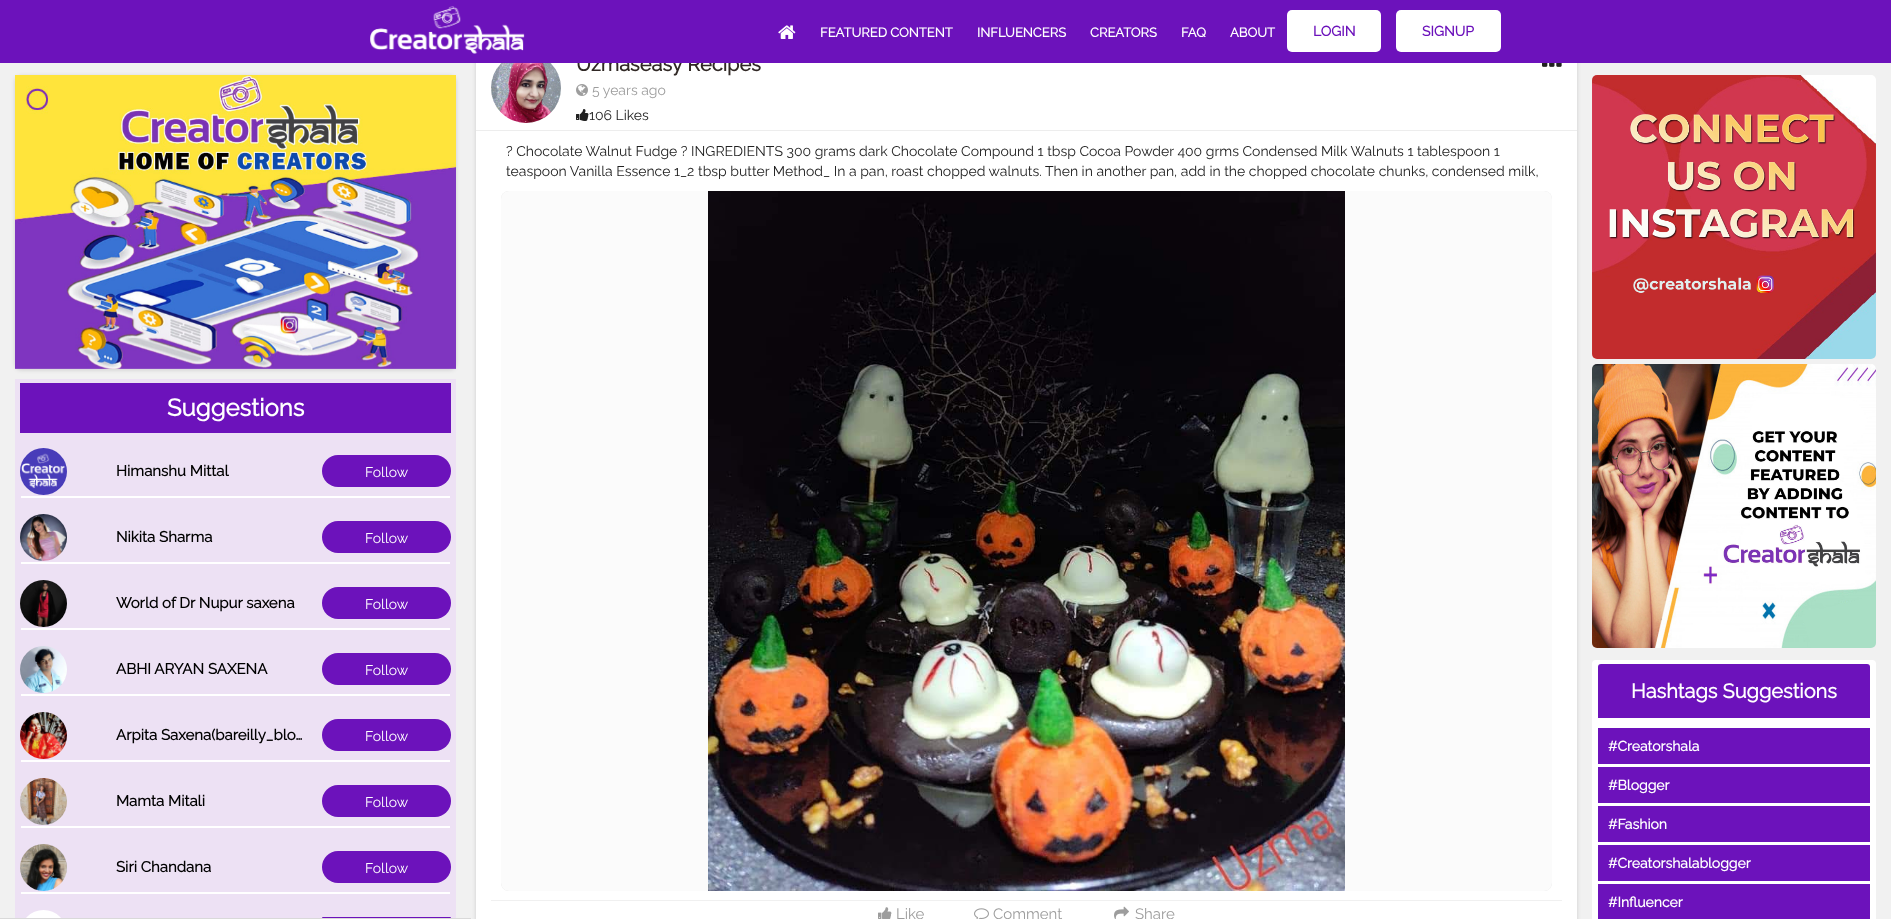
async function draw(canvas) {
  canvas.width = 1891;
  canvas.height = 919;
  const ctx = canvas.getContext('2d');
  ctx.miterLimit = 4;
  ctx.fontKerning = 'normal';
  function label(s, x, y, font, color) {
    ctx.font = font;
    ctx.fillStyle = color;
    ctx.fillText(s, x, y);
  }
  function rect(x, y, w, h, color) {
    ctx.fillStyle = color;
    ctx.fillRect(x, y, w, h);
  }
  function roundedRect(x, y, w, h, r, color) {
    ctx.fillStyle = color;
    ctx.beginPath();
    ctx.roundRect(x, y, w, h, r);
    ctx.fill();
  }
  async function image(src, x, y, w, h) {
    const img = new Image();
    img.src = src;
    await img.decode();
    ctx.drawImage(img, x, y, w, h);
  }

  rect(0, 0, 1891, 919, '#f1f1f1');
  ctx.fillStyle = '#00000024';
  ctx.filter = 'blur(2px)';
  ctx.beginPath();
  ctx.roundRect(476, 49, 1101, 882, 6);
  ctx.fill();
  ctx.filter = 'none';
  rect(476, 63, 1101, 856, '#fff');
  label('Uzmaseasy Recipes', 576, 71, 'bold 20px Raleway', '#302825');
  rect(0, 0, 1891, 63, '#6c12bb');
  await image('assets/img1.png', 370, 6, 155, 48);
  await image('assets/img2.png', 778, 25, 18, 14);
  label('FEATURED CONTENT', 820, 37, 'bold 13px Raleway', '#fff');
  label('INFLUENCERS', 977, 37, 'bold 13px Raleway', '#fff');
  label('CREATORS', 1090, 37, 'bold 13px Raleway', '#fff');
  label('FAQ', 1181, 37, 'bold 13px Raleway', '#fff');
  label('ABOUT', 1230, 37, 'bold 13px Raleway', '#fff');
  roundedRect(1287, 10, 94, 42, 5, '#fff');
  label('LOGIN', 1313, 36, 'bold 14px Raleway', '#6c12bb');
  roundedRect(1396, 10, 105, 42, 5, '#fff');
  label('SIGNUP', 1422, 36, 'bold 14px Raleway', '#6c12bb');
  rect(0, 918, 471, 1, '#d9d9d9');
  ctx.fillStyle = '#00000024';
  ctx.filter = 'blur(2px)';
  ctx.beginPath();
  ctx.roundRect(15, 76, 441, 294, 6);
  ctx.fill();
  ctx.filter = 'none';
  await image('assets/img3.png', 15, 75, 441, 294);
  rect(15, 379, 441, 539, '#ede1f4');
  rect(20, 383, 431, 50, '#6c12bb');
  label('Suggestions', 167, 416, 'bold 24px Raleway', '#fff');
  await image('assets/img4.png', 20, 448, 47, 47);
  label('Himanshu Mittal', 116, 476, 'bold 15px Raleway', '#000');
  roundedRect(322, 455, 129, 32, 16, '#6c12bb');
  label('Follow', 365, 477, '100 14px Raleway', '#fff');
  rect(21, 496, 429, 2, '#fff');
  await image('assets/img5.png', 20, 514, 47, 47);
  label('Nikita Sharma', 116, 542, 'bold 15px Raleway', '#000');
  roundedRect(322, 521, 129, 32, 16, '#6c12bb');
  label('Follow', 365, 543, '100 14px Raleway', '#fff');
  rect(21, 562, 429, 2, '#fff');
  await image('assets/img6.png', 20, 580, 47, 47);
  label('World of Dr Nupur saxena', 116, 608, 'bold 15px Raleway', '#000');
  roundedRect(322, 587, 129, 32, 16, '#6c12bb');
  label('Follow', 365, 609, '100 14px Raleway', '#fff');
  rect(21, 628, 429, 2, '#fff');
  await image('assets/img7.png', 20, 646, 47, 47);
  label('ABHI ARYAN SAXENA', 116, 674, 'bold 15px Raleway', '#000');
  roundedRect(322, 653, 129, 32, 16, '#6c12bb');
  label('Follow', 365, 675, '100 14px Raleway', '#fff');
  rect(21, 694, 429, 2, '#fff');
  await image('assets/img8.png', 20, 712, 47, 47);
  label('Arpita Saxena(bareilly_blo…', 116, 740, 'bold 15px Raleway', '#000');
  roundedRect(322, 719, 129, 32, 16, '#6c12bb');
  label('Follow', 365, 741, '100 14px Raleway', '#fff');
  rect(21, 760, 429, 2, '#fff');
  await image('assets/img9.png', 20, 778, 47, 47);
  label('Mamta Mitali', 116, 806, 'bold 15px Raleway', '#000');
  roundedRect(322, 785, 129, 32, 16, '#6c12bb');
  label('Follow', 365, 807, '100 14px Raleway', '#fff');
  rect(21, 826, 429, 2, '#fff');
  await image('assets/img10.png', 20, 844, 47, 47);
  label('Siri Chandana', 116, 872, 'bold 15px Raleway', '#000');
  roundedRect(322, 851, 129, 32, 16, '#6c12bb');
  label('Follow', 365, 873, '100 14px Raleway', '#fff');
  rect(21, 892, 429, 2, '#fff');
  await image('assets/img11.png', 26, 910, 35, 8);
  ctx.fillStyle = '#6c12bb';
  ctx.beginPath();
  ctx.roundRect(322, 917, 129, 1, [16, 16, 0, 0]);
  ctx.fill();
  rect(476, 130, 1101, 1, '#ededed');
  await image('assets/img12.png', 491, 63, 70, 60);
  await image('assets/img13.png', 576, 84, 12, 12);
  label('5 years ago', 592, 95, '100 14px Raleway', '#9d9d9d');
  await image('assets/img14.png', 576, 109, 13, 12);
  label('106 Likes', 589, 120, '100 14px Raleway', '#212121');
  await image('assets/img15.png', 1542, 63, 20, 4);
  label('? Chocolate Walnut Fudge ? INGREDIENTS 300 grams dark Chocolate Compound 1 tbsp Cocoa Powder 400 grms Condensed Milk Walnuts 1 tablespoon 1', 506, 156, '100 14px Raleway', '#212121');
  label('teaspoon Vanilla Essence 1_2 tbsp butter Method_ In a pan, roast chopped walnuts. Then in another pan, add in the chopped chocolate chunks, condensed milk,', 506, 176, '100 14px Raleway', '#212121');
  ctx.save();
  ctx.beginPath();
  ctx.roundRect(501, 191, 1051, 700, 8);
  ctx.clip();
  ctx.fillStyle = '#9d9d9d';
  ctx.filter = 'blur(3.5px)';
  ctx.beginPath();
  ctx.roundRect(502, 192, 1049, 698, 7);
  ctx.fill();
  ctx.filter = 'none';
  ctx.restore();
  roundedRect(501, 191, 1051, 700, 8, '#fbfbfb');
  await image('assets/img16.png', 708, 191, 637, 700);
  rect(491, 900, 1071, 1, '#f0f0f0');
  await image('assets/img17.png', 878, 907, 14, 12);
  label('Like', 896, 919, '100 15px Raleway', '#9d9d9d');
  await image('assets/img18.png', 974, 908, 15, 11);
  label('Comment', 993, 919, '100 15px Raleway', '#9d9d9d');
  await image('assets/img19.png', 1114, 906, 15, 13);
  label('Share', 1135, 919, '100 15px Raleway', '#9d9d9d');
  await image('assets/img20.png', 1592, 75, 284, 284);
  await image('assets/img21.png', 1592, 364, 284, 284);
  ctx.fillStyle = '#fff';
  ctx.beginPath();
  ctx.roundRect(1592, 660, 284, 259, [4, 4, 0, 0]);
  ctx.fill();
  ctx.fillStyle = '#6c12bb';
  ctx.beginPath();
  ctx.roundRect(1598, 664, 272, 54, [3, 3, 0, 0]);
  ctx.fill();
  label('Hashtags Suggestions', 1631, 698, 'bold 20px Raleway', '#fff');
  rect(1598, 728, 272, 36, '#6c12bb');
  label('#Creatorshala', 1608, 751, 'bold 14px Raleway', '#fff');
  rect(1598, 767, 272, 36, '#6c12bb');
  label('#Blogger', 1608, 790, 'bold 14px Raleway', '#fff');
  rect(1598, 806, 272, 36, '#6c12bb');
  label('#Fashion', 1608, 829, 'bold 14px Raleway', '#fff');
  rect(1598, 845, 272, 36, '#6c12bb');
  label('#Creatorshalablogger', 1608, 868, 'bold 14px Raleway', '#fff');
  rect(1598, 884, 272, 35, '#6c12bb');
  label('#Influencer', 1608, 907, 'bold 14px Raleway', '#fff');
}

draw(document.querySelector('canvas'));
